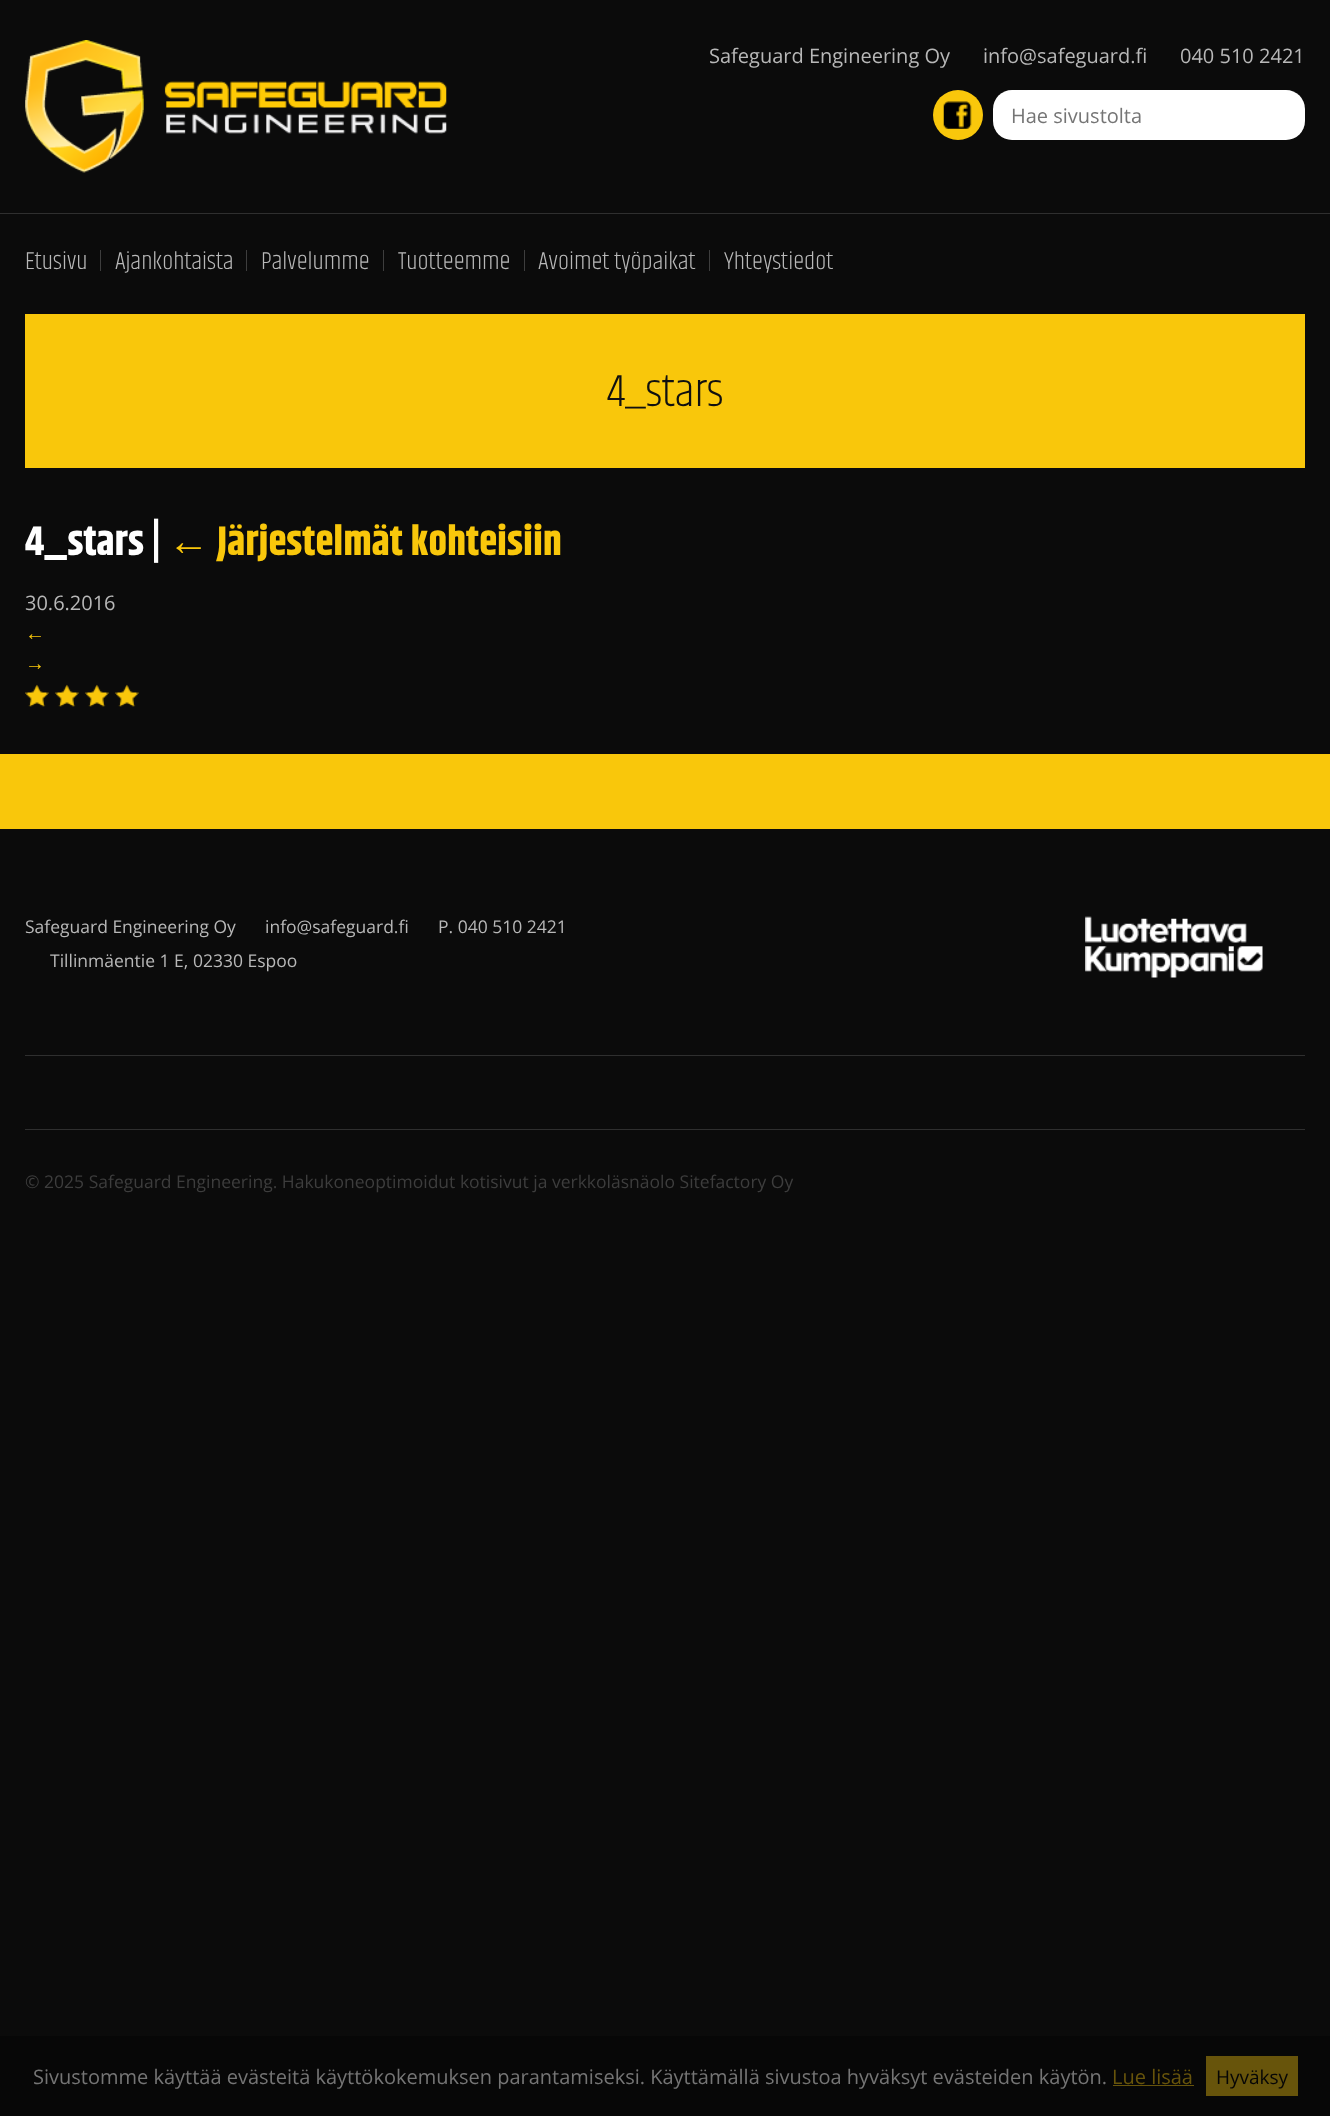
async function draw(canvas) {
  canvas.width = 1330;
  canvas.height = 2116;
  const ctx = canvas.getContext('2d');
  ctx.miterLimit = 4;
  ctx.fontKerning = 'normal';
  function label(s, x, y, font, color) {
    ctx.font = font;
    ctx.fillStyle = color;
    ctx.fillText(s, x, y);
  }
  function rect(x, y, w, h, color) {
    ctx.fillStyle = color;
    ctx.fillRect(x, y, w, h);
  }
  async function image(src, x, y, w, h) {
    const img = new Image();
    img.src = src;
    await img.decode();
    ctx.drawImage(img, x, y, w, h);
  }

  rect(0, 0, 1330, 2116, '#0b0b0b');
  await image('assets/img1.png', 25, 40, 422, 133);
  label('Safeguard Engineering Oy', 709, 63, '20px Open Sans', '#b8b8b8');
  label('info@safeguard.fi', 983, 63, '20px Open Sans', '#b8b8b8');
  label('040 510 2421', 1180, 63, '20px Open Sans', '#b8b8b8');
  ctx.fillStyle = '#f9c70b';
  ctx.beginPath();
  ctx.arc(958, 115, 25, 0, 2 * Math.PI);
  ctx.fill();
  await image('assets/img2.png', 943, 101, 29, 28);
  ctx.fillStyle = '#fff';
  ctx.beginPath();
  ctx.roundRect(993, 90, 262, 50, [19, 0, 0, 19]);
  ctx.fill();
  label('Hae sivustolta', 1011, 123, '20px Open Sans', '#757575');
  ctx.fillStyle = '#fff';
  ctx.beginPath();
  ctx.roundRect(1255, 90, 50, 50, [0, 19, 19, 0]);
  ctx.fill();
  rect(0, 213, 1330, 1, '#2f2f2f');
  label('Etusivu', 25, 269, '300 25px Khand', '#b8b8b8');
  rect(100, 250, 1, 21, '#3e3e3e');
  label('Ajankohtaista', 115, 269, '300 25px Khand', '#b8b8b8');
  rect(246, 250, 1, 21, '#3e3e3e');
  label('Palvelumme', 261, 269, '300 25px Khand', '#b8b8b8');
  rect(383, 250, 1, 21, '#3e3e3e');
  label('Tuotteemme', 398, 269, '300 25px Khand', '#b8b8b8');
  rect(524, 250, 1, 21, '#3e3e3e');
  label('Avoimet työpaikat', 538, 269, '300 25px Khand', '#b8b8b8');
  rect(709, 250, 1, 21, '#3e3e3e');
  label('Yhteystiedot', 724, 269, '300 25px Khand', '#b8b8b8');
  rect(25, 314, 1280, 154, '#f9c70b');
  label('4_stars', 607, 406, '300 46px Khand', '#101010');
  label('4_stars |', 25, 555, 'bold 41.25px Khand', '#fff');
  label('←', 168, 555, 'bold 41.25px Liberation Sans', '#f9c70b');
  label('Järjestelmät kohteisiin', 217, 555, 'bold 41.25px Khand', '#f9c70b');
  label('30.6.2016', 25, 610, '20px Open Sans', '#b8b8b8');
  label('←', 25, 640, '20px Liberation Sans', '#f9c70b');
  label('→', 25, 670, '20px Liberation Sans', '#f9c70b');
  await image('assets/img3.png', 25, 684, 114, 23);
  rect(0, 754, 1330, 75, '#f9c70b');
  label('Safeguard Engineering Oy', 25, 933, '17.5px Open Sans', '#b8b8b8');
  label('info@safeguard.fi', 265, 933, '17.5px Open Sans', '#b8b8b8');
  label('P. 040 510 2421', 438, 933, '17.5px Open Sans', '#b8b8b8');
  label('Tillinmäentie 1 E, 02330 Espoo', 50, 967, '17.5px Open Sans', '#b8b8b8');
  await image('assets/img4.png', 1085, 916, 178, 62);
  rect(25, 1055, 1280, 1, '#2f2f2f');
  rect(25, 1129, 1280, 1, '#2f2f2f');
  label('© 2025 Safeguard Engineering. Hakukoneoptimoidut kotisivut ja verkkoläsnäolo Sitefactory Oy', 25, 1188, '17.5px Open Sans', '#3d3d3d');
  rect(0, 2036, 1330, 80, '#070707');
  label('Sivustomme käyttää evästeitä käyttökokemuksen parantamiseksi. Käyttämällä sivustoa hyväksyt evästeiden käytön.', 33, 2084, '20px Open Sans', '#757575');
  label('Lue lisää', 1112, 2084, '20px Open Sans', '#67540b');
  rect(1113, 2085, 81, 1, '#67540b');
  rect(1206, 2056, 92, 40, '#67540b');
  label('Hyväksy', 1216, 2084, '19px Open Sans', '#060606');
}

draw(document.querySelector('canvas'));
